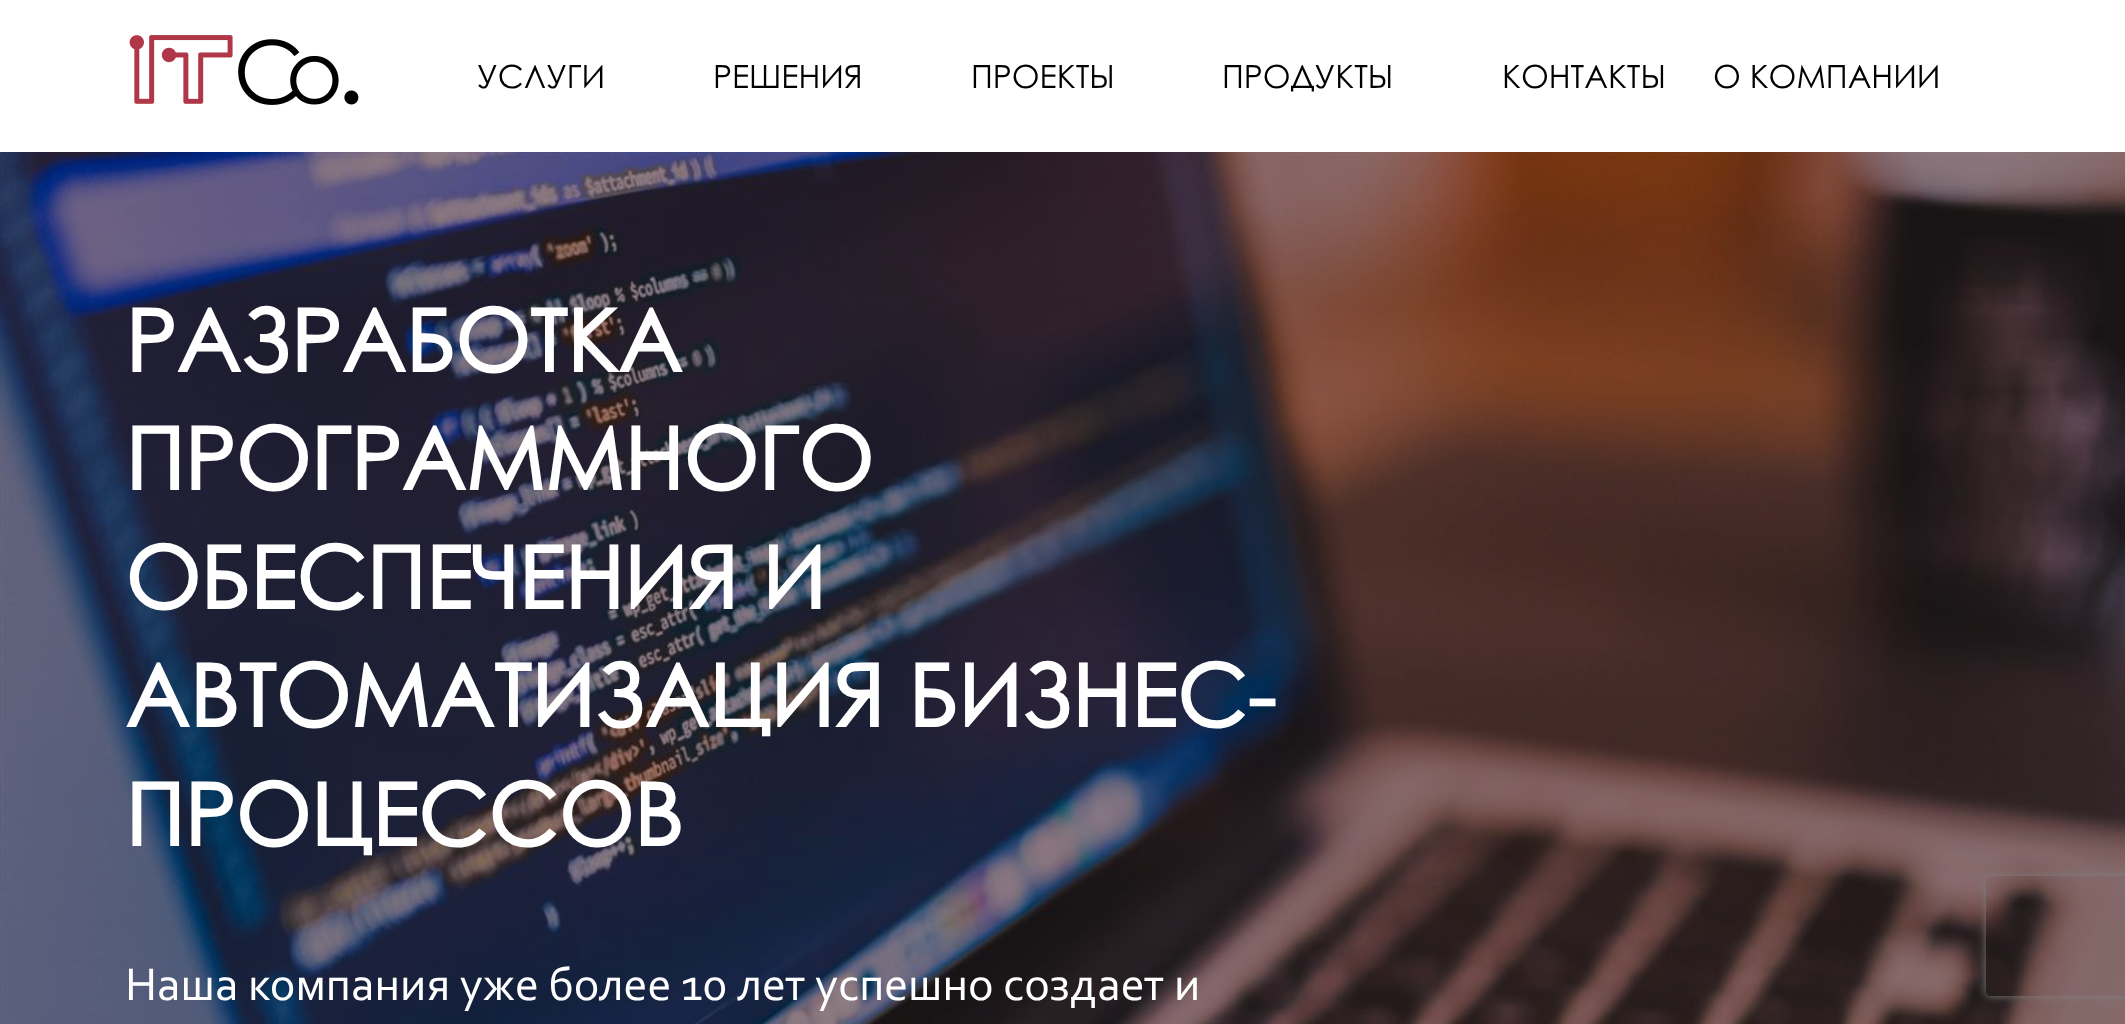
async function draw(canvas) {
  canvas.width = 2125;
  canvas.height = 1024;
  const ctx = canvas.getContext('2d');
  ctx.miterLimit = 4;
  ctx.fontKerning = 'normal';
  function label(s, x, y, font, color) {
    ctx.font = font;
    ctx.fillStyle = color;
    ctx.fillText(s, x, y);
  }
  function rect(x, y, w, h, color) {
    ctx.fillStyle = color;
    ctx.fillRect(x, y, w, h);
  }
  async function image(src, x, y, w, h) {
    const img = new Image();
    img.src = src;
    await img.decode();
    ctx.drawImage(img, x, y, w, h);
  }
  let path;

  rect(0, 0, 2125, 1024, '#fff');
  await image('assets/img1.png', 129, 35, 230, 70);
  label('УСЛУГИ', 477, 88, '32px Century Gothic', '#000');
  label('РЕШЕНИЯ', 713, 88, '32px Century Gothic', '#000');
  label('ПРОЕКТЫ', 971, 88, '32px Century Gothic', '#000');
  label('ПРОДУКТЫ', 1222, 88, '32px Century Gothic', '#000');
  label('КОНТАКТЫ', 1502, 88, '32px Century Gothic', '#000');
  label('О КОМПАНИИ', 1713, 88, '32px Century Gothic', '#000');
  await image('assets/img2.png', 0, 152, 2125, 872);
  label('РАЗРАБОТКА', 125, 372, 'bold 86.4px Century Gothic', '#fff');
  label('ПРОГРАММНОГО', 125, 490, 'bold 86.4px Century Gothic', '#fff');
  label('ОБЕСПЕЧЕНИЯ И', 125, 609, 'bold 86.4px Century Gothic', '#fff');
  label('АВТОМАТИЗАЦИЯ БИЗНЕС-', 125, 727, 'bold 86.4px Century Gothic', '#fff');
  label('ПРОЦЕССОВ', 125, 846, 'bold 86.4px Century Gothic', '#fff');
  label('Наша компания уже более 10 лет успешно создает и', 125, 1000, '48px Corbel', '#fff');
  ctx.save();
  path = new Path2D('M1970 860H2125V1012H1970ZM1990 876H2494C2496 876 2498 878 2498 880V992C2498 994 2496 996 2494 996H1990C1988 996 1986 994 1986 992V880C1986 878 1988 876 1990 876Z');
  ctx.clip(path, 'evenodd');
  ctx.fillStyle = '#808080';
  ctx.filter = 'blur(5px)';
  ctx.beginPath();
  ctx.roundRect(1986, 876, 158, 120, 4);
  ctx.fill();
  ctx.filter = 'none';
  ctx.restore();
}

draw(document.querySelector('canvas'));
